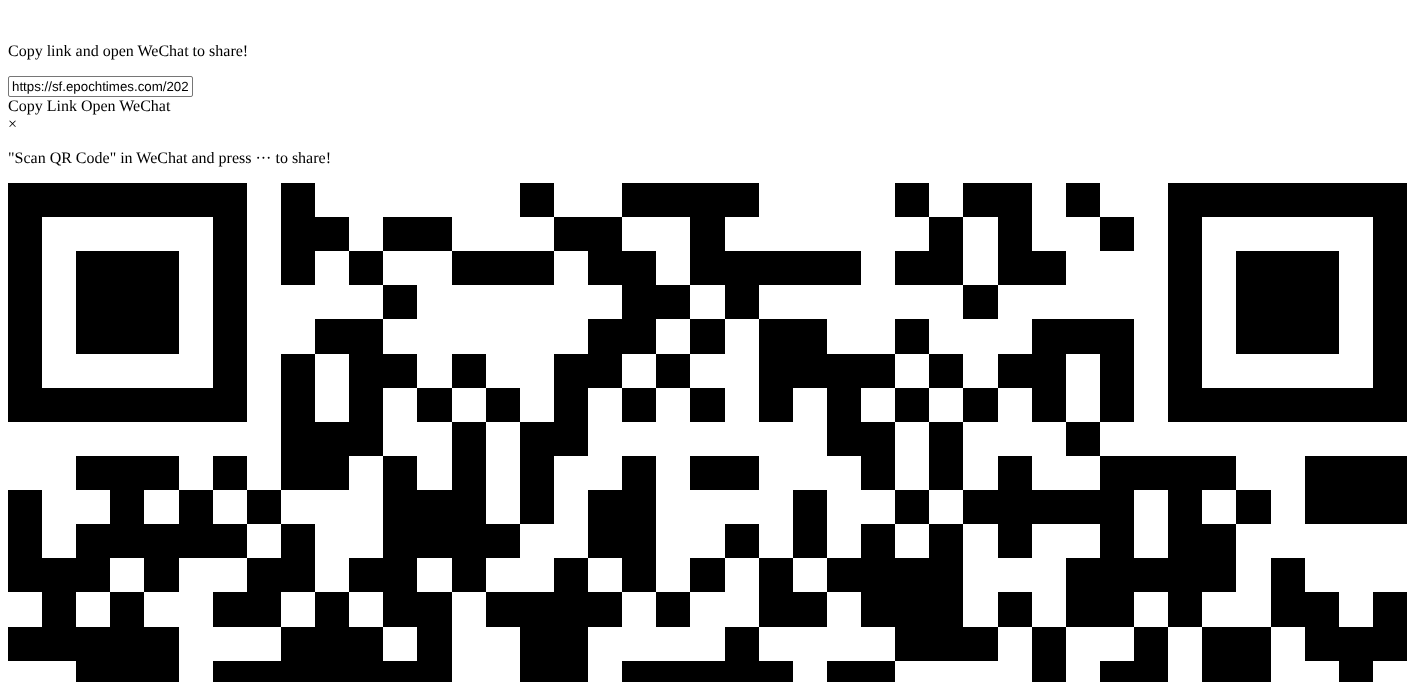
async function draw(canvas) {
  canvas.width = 1415;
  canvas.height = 682;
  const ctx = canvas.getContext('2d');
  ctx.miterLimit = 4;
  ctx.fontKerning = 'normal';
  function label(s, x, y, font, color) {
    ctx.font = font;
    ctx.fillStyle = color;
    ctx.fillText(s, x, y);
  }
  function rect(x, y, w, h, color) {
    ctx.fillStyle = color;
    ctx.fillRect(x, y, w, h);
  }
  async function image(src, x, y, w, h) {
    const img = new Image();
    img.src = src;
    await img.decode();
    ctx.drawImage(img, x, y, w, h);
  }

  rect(0, 0, 1415, 682, '#fff');
  label('Copy link and open WeChat to share!', 8, 56, '16px Liberation Serif', '#000');
  ctx.beginPath();
  ctx.roundRect(8.5, 76.5, 184, 20, 1.5);
  ctx.strokeStyle = '#767676';
  ctx.stroke();
  label('https://sf.epochtimes.com/202', 12, 91, '13.3px Liberation Sans', '#000');
  label('Copy Link Open WeChat', 8, 111, '16px Liberation Serif', '#000');
  label('×', 8, 129, '16px Liberation Serif', '#000');
  label('"Scan QR Code" in WeChat and press ··· to share!', 8, 163, '16px Liberation Serif', '#000');
  await image('assets/img1.png', 8, 183, 1399, 499);
}

draw(document.querySelector('canvas'));
